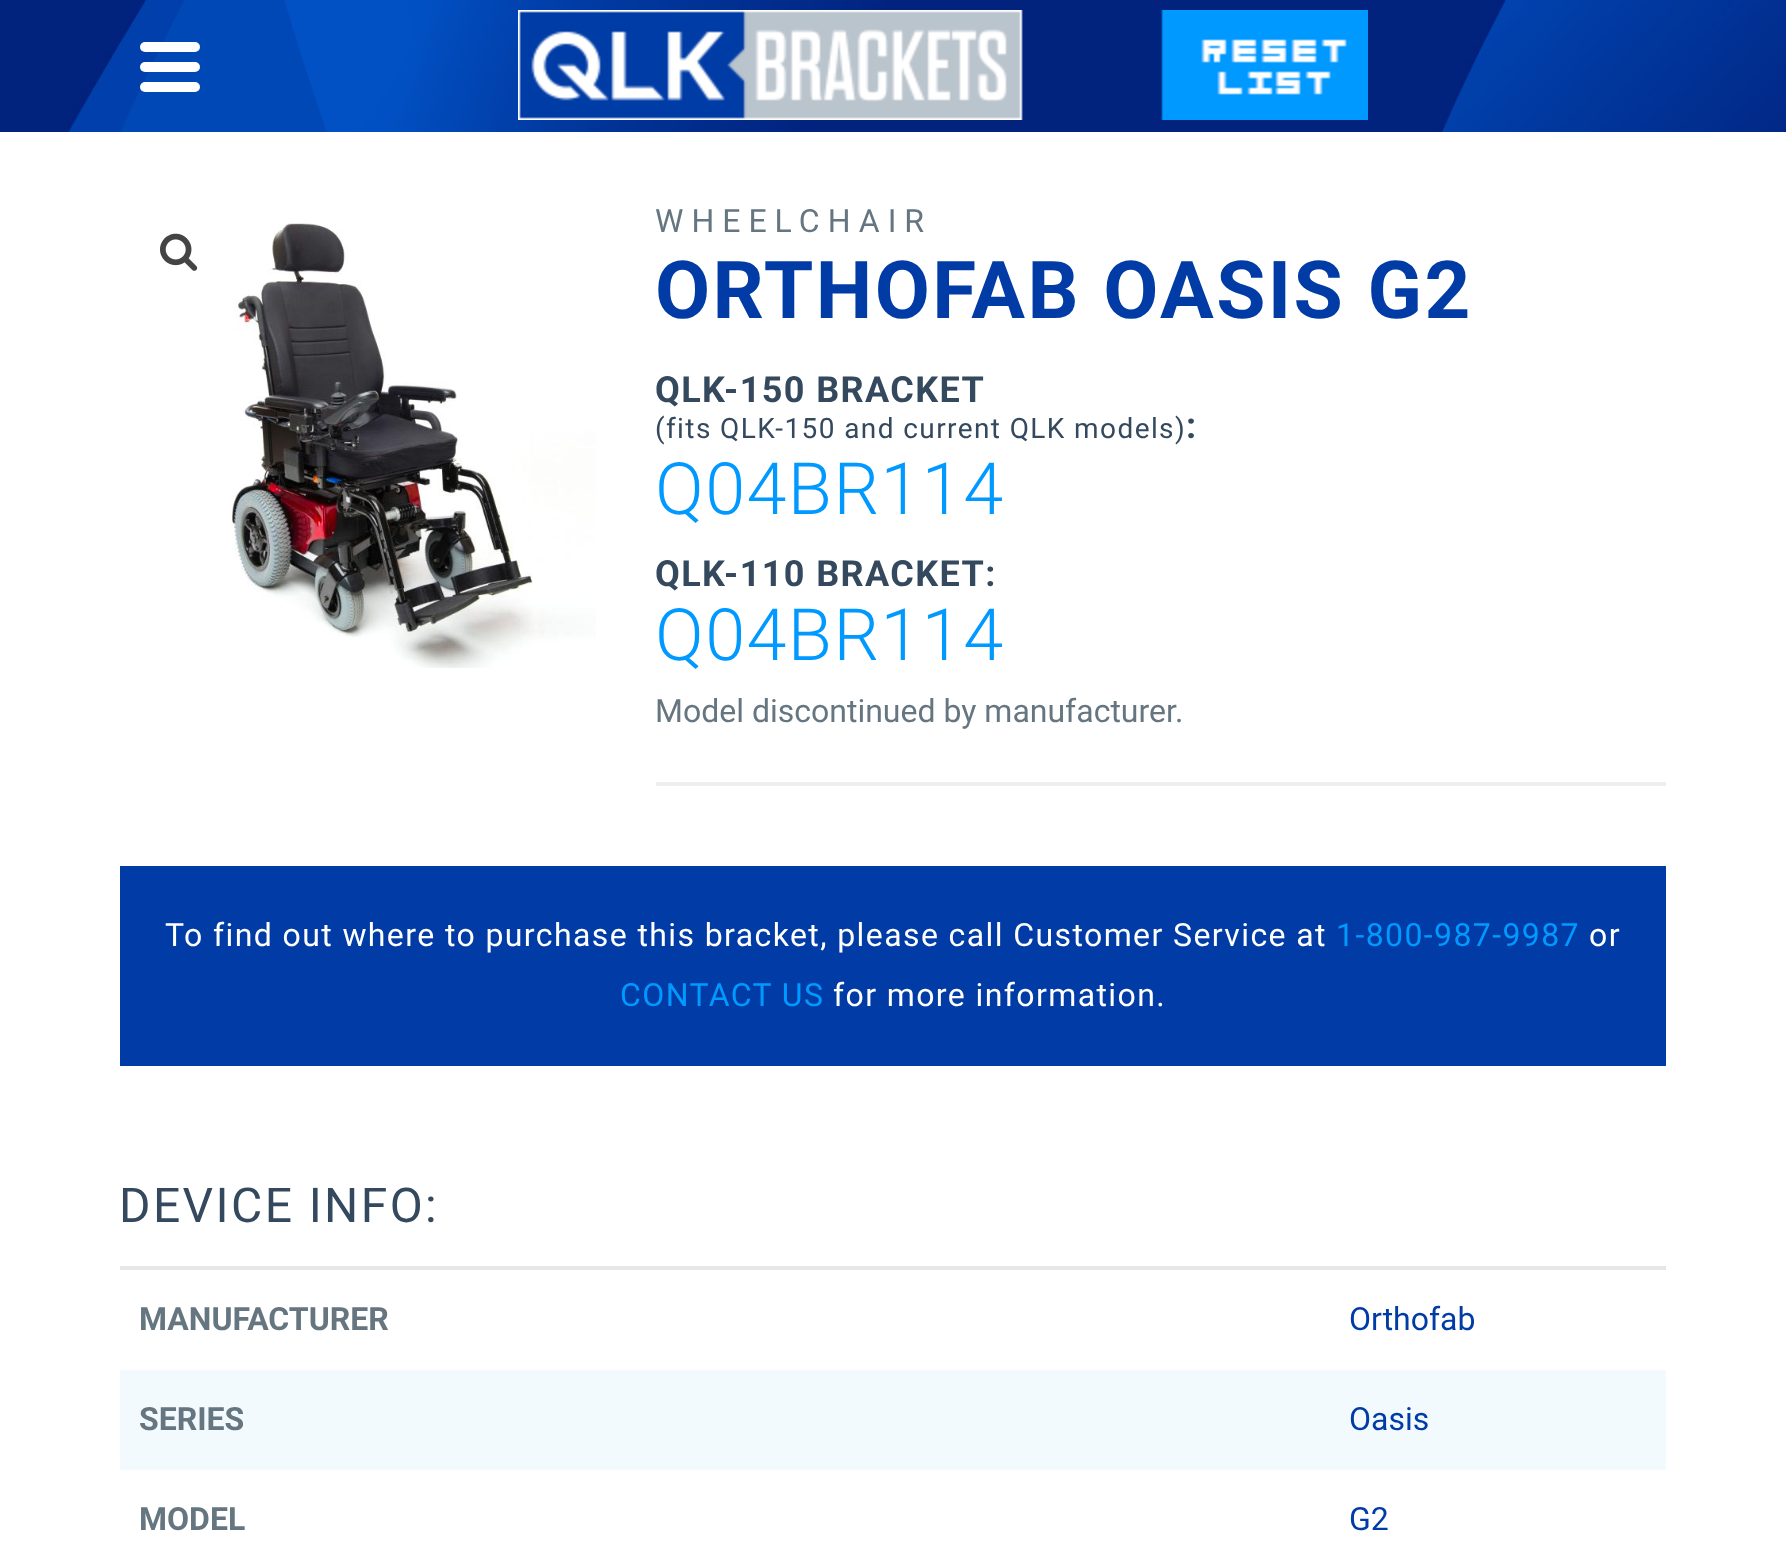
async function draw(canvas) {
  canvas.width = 1786;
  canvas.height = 1544;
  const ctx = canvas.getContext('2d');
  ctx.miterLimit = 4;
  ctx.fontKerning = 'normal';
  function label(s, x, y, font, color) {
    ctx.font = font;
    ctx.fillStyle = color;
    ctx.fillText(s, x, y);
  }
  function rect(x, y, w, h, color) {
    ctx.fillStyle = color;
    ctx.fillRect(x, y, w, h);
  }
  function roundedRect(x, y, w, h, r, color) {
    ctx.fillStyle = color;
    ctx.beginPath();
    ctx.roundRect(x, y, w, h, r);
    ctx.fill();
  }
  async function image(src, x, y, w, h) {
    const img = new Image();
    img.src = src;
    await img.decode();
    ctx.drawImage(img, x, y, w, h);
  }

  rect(0, 0, 1786, 1544, '#fff');
  await image('assets/img1.png', 0, 0, 1786, 132);
  roundedRect(140, 42, 60, 10, 5, '#fff');
  roundedRect(140, 62, 60, 10, 5, '#fff');
  roundedRect(140, 82, 60, 10, 5, '#fff');
  await image('assets/img2.png', 518, 10, 850, 110);
  await image('assets/img3.png', 160, 233, 38, 38);
  await image('assets/img4.png', 230, 223, 366, 445);
  ctx.letterSpacing = '8px';
  label('WHEELCHAIR', 655, 232, '32px Roboto', '#657680');
  ctx.letterSpacing = '2.4px';
  label('ORTHOFAB OASIS G2', 655, 318, 'bold 80px Roboto', '#013ca6');
  ctx.letterSpacing = '1.4px';
  label('QLK-150 BRACKET', 655, 402, 'bold 36px Roboto', '#34495e');
  label('(fits QLK-150 and current QLK models)', 655, 438, '28px Roboto', '#34495e');
  label(':', 1186, 438, 'bold 36px Roboto', '#34495e');
  label('Q04BR114', 655, 514, '300 72px Roboto', '#09f');
  label('QLK-110 BRACKET:', 655, 586, 'bold 36px Roboto', '#34495e');
  label('Q04BR114', 655, 660, '300 72px Roboto', '#09f');
  ctx.letterSpacing = '0px';
  label('Model discontinued by manufacturer.', 655, 722, '32px Roboto', '#657680');
  rect(656, 782, 1010, 4, '#eee');
  rect(120, 866, 1546, 200, '#013ca6');
  ctx.letterSpacing = '1.4px';
  label('To find out where to purchase this bracket, please call Customer Service at', 165, 946, '32px Roboto', '#fff');
  label('1-800-987-9987', 1336, 946, '32px Roboto', '#09f');
  label('or', 1589, 946, '32px Roboto', '#fff');
  label('CONTACT US', 620, 1006, '32px Roboto', '#09f');
  label('for more information.', 833, 1006, '32px Roboto', '#fff');
  ctx.letterSpacing = '2.4px';
  label('DEVICE INFO:', 119, 1222, '48px Roboto', '#34495e');
  rect(120, 1266, 1546, 4, '#e6e6e6');
  ctx.letterSpacing = '0px';
  label('MANUFACTURER', 139, 1330, 'bold 32px Roboto', '#657680');
  label('Orthofab', 1349, 1330, '32px Roboto', '#013ca6');
  rect(120, 1370, 1546, 100, '#f2fafe');
  label('SERIES', 139, 1430, 'bold 32px Roboto', '#657680');
  label('Oasis', 1349, 1430, '32px Roboto', '#013ca6');
  label('MODEL', 139, 1530, 'bold 32px Roboto', '#657680');
  label('G2', 1349, 1530, '32px Roboto', '#013ca6');
}

draw(document.querySelector('canvas'));
